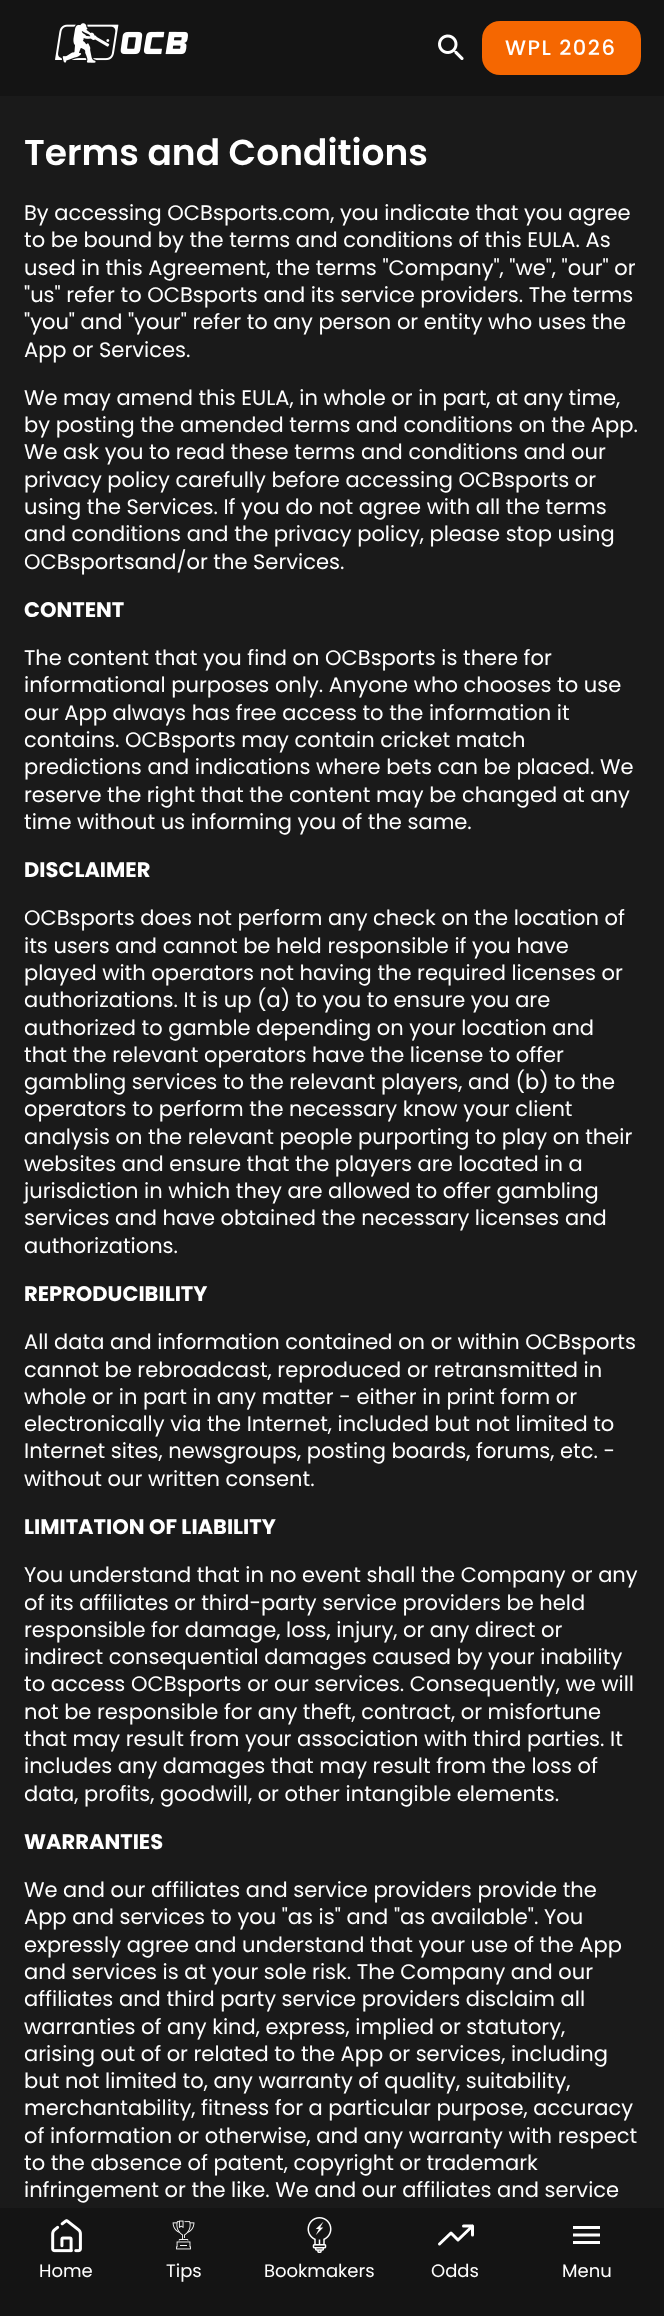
async function draw(canvas) {
  canvas.width = 664;
  canvas.height = 2316;
  const ctx = canvas.getContext('2d');
  ctx.miterLimit = 4;
  ctx.fontKerning = 'normal';
  function label(s, x, y, font, color) {
    ctx.font = font;
    ctx.fillStyle = color;
    ctx.fillText(s, x, y);
  }
  function rect(x, y, w, h, color) {
    ctx.fillStyle = color;
    ctx.fillRect(x, y, w, h);
  }
  function roundedRect(x, y, w, h, r, color) {
    ctx.fillStyle = color;
    ctx.beginPath();
    ctx.roundRect(x, y, w, h, r);
    ctx.fill();
  }
  async function image(src, x, y, w, h) {
    const img = new Image();
    img.src = src;
    await img.decode();
    ctx.drawImage(img, x, y, w, h);
  }
  let path;

  rect(0, 0, 664, 2316, '#1a1a1a');
  rect(0, 0, 664, 96, '#141414');
  await image('assets/img1.png', 55, 23, 133, 40);
  await image('assets/img2.png', 438, 34, 26, 26);
  roundedRect(482, 21, 159, 54, 18, '#f56701');
  ctx.letterSpacing = '1.5px';
  label('WPL 2026', 505, 55, '500 21px Poppins', '#fff');
  ctx.letterSpacing = '0px';
  label('Terms and Conditions', 24, 165, '600 36px Poppins', '#fff');
  label('By accessing OCBsports.com, you indicate that you agree', 24, 220, '21px Poppins', '#fff');
  label('to be bound by the terms and conditions of this EULA. As', 24, 247, '21px Poppins', '#fff');
  label('used in this Agreement, the terms "Company", "we", "our" or', 24, 275, '21px Poppins', '#fff');
  label('"us" refer to OCBsports and its service providers. The terms', 24, 302, '21px Poppins', '#fff');
  label('"you" and "your" refer to any person or entity who uses the', 24, 329, '21px Poppins', '#fff');
  label('App or Services.', 24, 357, '21px Poppins', '#fff');
  label('We may amend this EULA, in whole or in part, at any time,', 24, 405, '21px Poppins', '#fff');
  label('by posting the amended terms and conditions on the App.', 24, 432, '21px Poppins', '#fff');
  label('We ask you to read these terms and conditions and our', 24, 459, '21px Poppins', '#fff');
  label('privacy policy carefully before accessing OCBsports or', 24, 487, '21px Poppins', '#fff');
  label('using the Services. If you do not agree with all the terms', 24, 514, '21px Poppins', '#fff');
  label('and conditions and the privacy policy, please stop using', 24, 541, '21px Poppins', '#fff');
  label('OCBsportsand/or the Services.', 24, 569, '21px Poppins', '#fff');
  label('CONTENT', 24, 617, 'bold 21px Poppins', '#fff');
  label('The content that you find on OCBsports is there for', 24, 665, '21px Poppins', '#fff');
  label('informational purposes only. Anyone who chooses to use', 24, 692, '21px Poppins', '#fff');
  label('our App always has free access to the information it', 24, 720, '21px Poppins', '#fff');
  label('contains. OCBsports may contain cricket match', 24, 747, '21px Poppins', '#fff');
  label('predictions and indications where bets can be placed. We', 24, 774, '21px Poppins', '#fff');
  label('reserve the right that the content may be changed at any', 24, 802, '21px Poppins', '#fff');
  label('time without us informing you of the same.', 24, 829, '21px Poppins', '#fff');
  label('DISCLAIMER', 24, 877, 'bold 21px Poppins', '#fff');
  label('OCBsports does not perform any check on the location of', 24, 925, '21px Poppins', '#fff');
  label('its users and cannot be held responsible if you have', 24, 953, '21px Poppins', '#fff');
  label('played with operators not having the required licenses or', 24, 980, '21px Poppins', '#fff');
  label('authorizations. It is up (a) to you to ensure you are', 24, 1007, '21px Poppins', '#fff');
  label('authorized to gamble depending on your location and', 24, 1035, '21px Poppins', '#fff');
  label('that the relevant operators have the license to offer', 24, 1062, '21px Poppins', '#fff');
  label('gambling services to the relevant players, and (b) to the', 24, 1089, '21px Poppins', '#fff');
  label('operators to perform the necessary know your client', 24, 1116, '21px Poppins', '#fff');
  label('analysis on the relevant people purporting to play on their', 24, 1144, '21px Poppins', '#fff');
  label('websites and ensure that the players are located in a', 24, 1171, '21px Poppins', '#fff');
  label('jurisdiction in which they are allowed to offer gambling', 24, 1198, '21px Poppins', '#fff');
  label('services and have obtained the necessary licenses and', 24, 1225, '21px Poppins', '#fff');
  label('authorizations.', 24, 1253, '21px Poppins', '#fff');
  label('REPRODUCIBILITY', 24, 1301, 'bold 21px Poppins', '#fff');
  label('All data and information contained on or within OCBsports', 24, 1349, '21px Poppins', '#fff');
  label('cannot be rebroadcast, reproduced or retransmitted in', 24, 1377, '21px Poppins', '#fff');
  label('whole or in part in any matter - either in print form or', 24, 1404, '21px Poppins', '#fff');
  label('electronically via the Internet, included but not limited to', 24, 1431, '21px Poppins', '#fff');
  label('Internet sites, newsgroups, posting boards, forums, etc. -', 24, 1458, '21px Poppins', '#fff');
  label('without our written consent.', 24, 1486, '21px Poppins', '#fff');
  label('LIMITATION OF LIABILITY', 24, 1534, 'bold 21px Poppins', '#fff');
  label('You understand that in no event shall the Company or any', 24, 1582, '21px Poppins', '#fff');
  label('of its affiliates or third-party service providers be held', 24, 1610, '21px Poppins', '#fff');
  label('responsible for damage, loss, injury, or any direct or', 24, 1637, '21px Poppins', '#fff');
  label('indirect consequential damages caused by your inability', 24, 1664, '21px Poppins', '#fff');
  label('to access OCBsports or our services. Consequently, we will', 24, 1691, '21px Poppins', '#fff');
  label('not be responsible for any theft, contract, or misfortune', 24, 1719, '21px Poppins', '#fff');
  label('that may result from your association with third parties. It', 24, 1746, '21px Poppins', '#fff');
  label('includes any damages that may result from the loss of', 24, 1773, '21px Poppins', '#fff');
  label('data, profits, goodwill, or other intangible elements.', 24, 1801, '21px Poppins', '#fff');
  label('WARRANTIES', 24, 1849, 'bold 21px Poppins', '#fff');
  label('We and our affiliates and service providers provide the', 24, 1897, '21px Poppins', '#fff');
  label('App and services to you "as is" and "as available". You', 24, 1924, '21px Poppins', '#fff');
  label('expressly agree and understand that your use of the App', 24, 1952, '21px Poppins', '#fff');
  label('and services is at your sole risk. The Company and our', 24, 1979, '21px Poppins', '#fff');
  label('affiliates and third party service providers disclaim all', 24, 2006, '21px Poppins', '#fff');
  label('warranties of any kind, express, implied or statutory,', 24, 2034, '21px Poppins', '#fff');
  label('arising out of or related to the App or services, including', 24, 2061, '21px Poppins', '#fff');
  label('but not limited to, any warranty of quality, suitability,', 24, 2088, '21px Poppins', '#fff');
  label('merchantability, fitness for a particular purpose, accuracy', 24, 2115, '21px Poppins', '#fff');
  label('of information or otherwise, and any warranty with respect', 24, 2143, '21px Poppins', '#fff');
  label('to the absence of patent, copyright or trademark', 24, 2170, '21px Poppins', '#fff');
  label('infringement or the like. We and our affiliates and service', 24, 2197, '21px Poppins', '#fff');
  rect(0, 2208, 664, 108, '#141414');
  await image('assets/img3.png', 51, 2219, 31, 34);
  label('Home', 39, 2277, '18px Poppins', '#fff');
  await image('assets/img4.png', 172, 2220, 23, 30);
  label('Tips', 166, 2277, '18px Poppins', '#fff');
  await image('assets/img5.png', 307, 2217, 25, 36);
  label('Bookmakers', 264, 2277, '18px Poppins', '#fff');
  path = new Path2D('M472.5 2226L458 2240L451 2233L439.5 2244M463.5 2226H472.5V2235');
  ctx.strokeStyle = '#fff';
  ctx.lineWidth = 3;
  ctx.lineCap = 'round';
  ctx.lineJoin = 'round';
  ctx.stroke(path);
  label('Odds', 431, 2277, '18px Poppins', '#fff');
  await image('assets/img6.png', 573, 2226, 27, 18);
  label('Menu', 562, 2277, '18px Poppins', '#fff');
}

draw(document.querySelector('canvas'));
